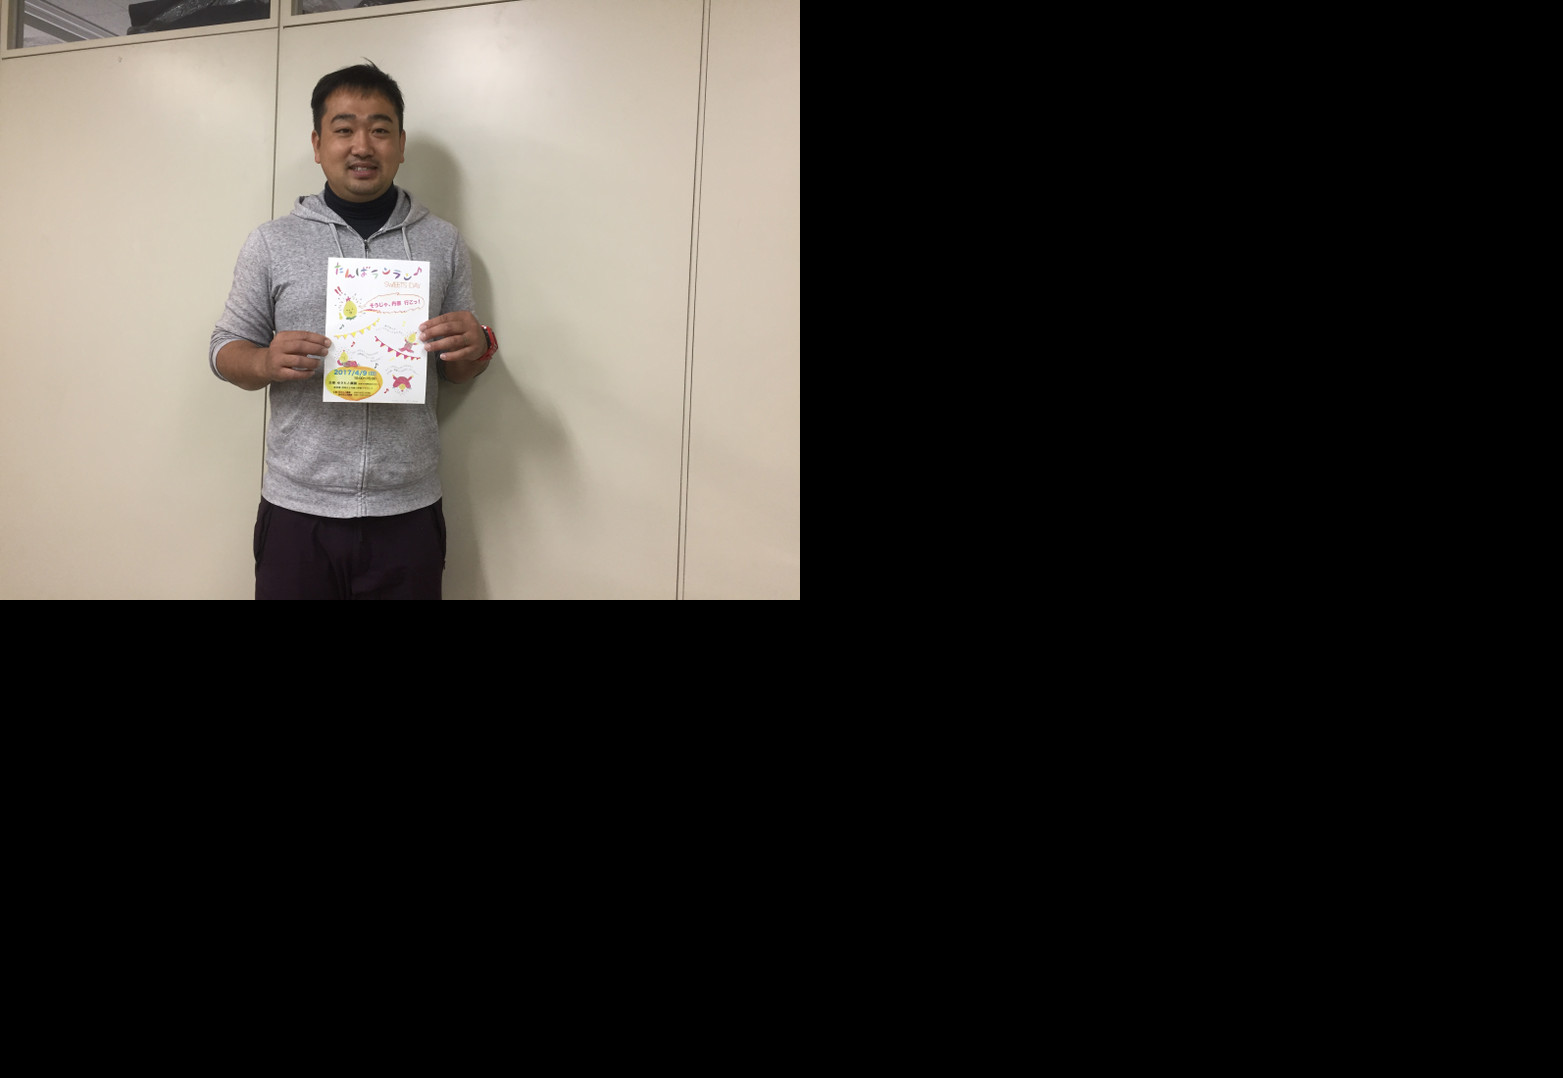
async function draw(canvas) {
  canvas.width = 1563;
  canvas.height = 1078;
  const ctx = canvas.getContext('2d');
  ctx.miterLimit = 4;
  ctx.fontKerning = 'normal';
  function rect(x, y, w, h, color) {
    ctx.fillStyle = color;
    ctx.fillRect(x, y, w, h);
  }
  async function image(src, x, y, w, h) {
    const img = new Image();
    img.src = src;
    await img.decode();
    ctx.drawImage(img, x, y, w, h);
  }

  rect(0, 0, 1563, 1078, '#000');
  await image('assets/img1.png', 0, 0, 800, 600);
}

draw(document.querySelector('canvas'));
